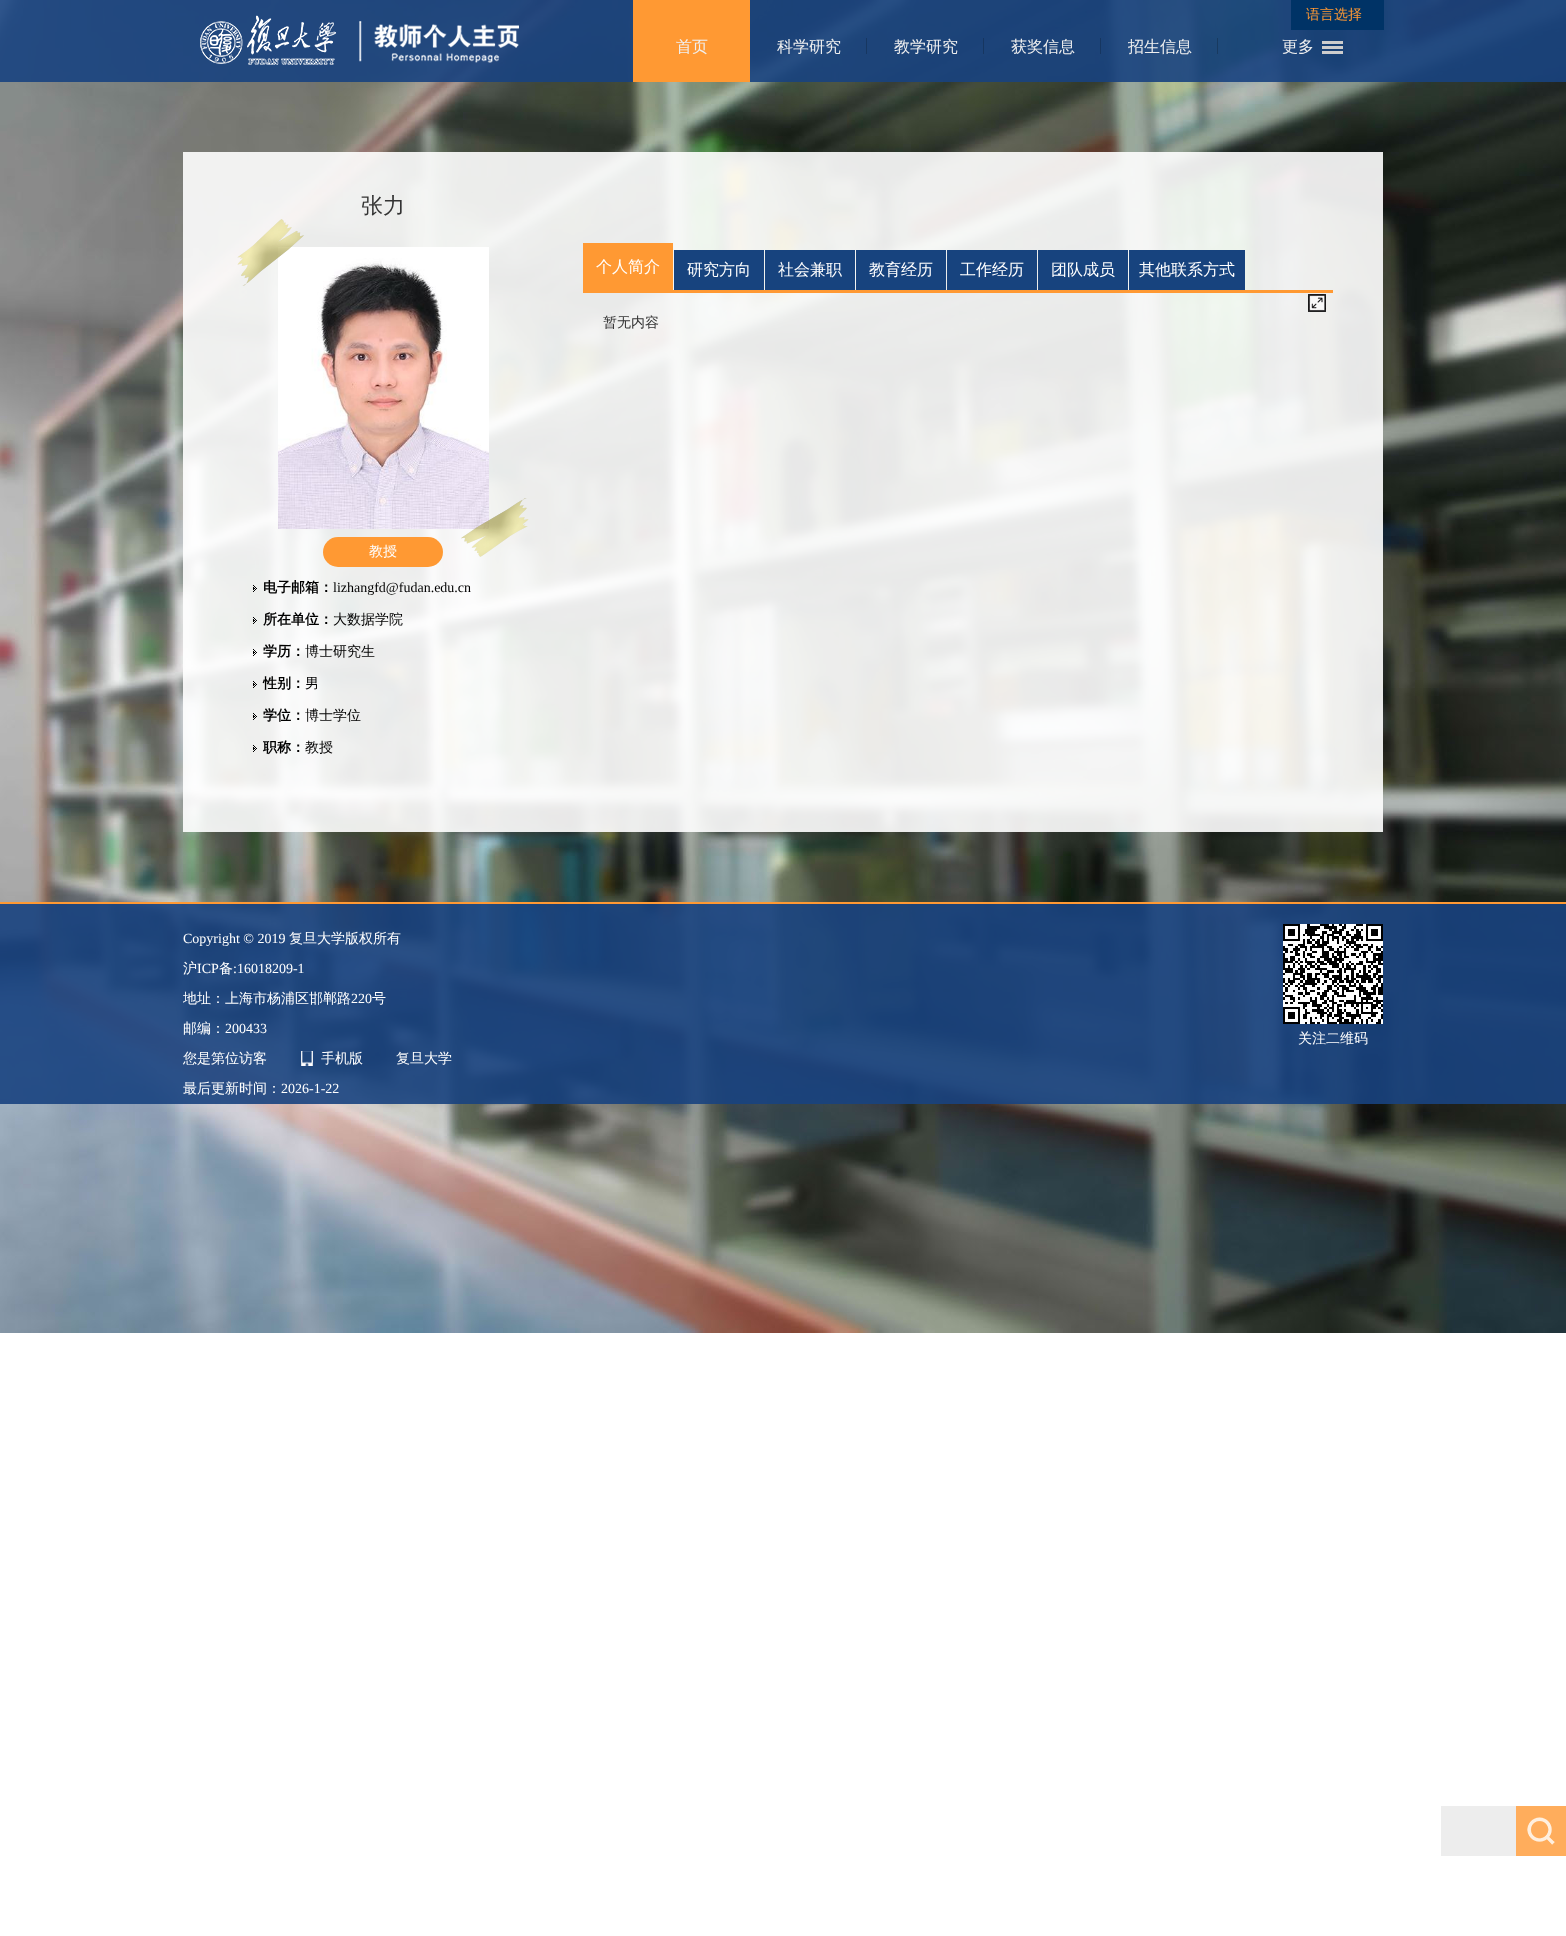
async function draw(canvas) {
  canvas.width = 1566;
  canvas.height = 1936;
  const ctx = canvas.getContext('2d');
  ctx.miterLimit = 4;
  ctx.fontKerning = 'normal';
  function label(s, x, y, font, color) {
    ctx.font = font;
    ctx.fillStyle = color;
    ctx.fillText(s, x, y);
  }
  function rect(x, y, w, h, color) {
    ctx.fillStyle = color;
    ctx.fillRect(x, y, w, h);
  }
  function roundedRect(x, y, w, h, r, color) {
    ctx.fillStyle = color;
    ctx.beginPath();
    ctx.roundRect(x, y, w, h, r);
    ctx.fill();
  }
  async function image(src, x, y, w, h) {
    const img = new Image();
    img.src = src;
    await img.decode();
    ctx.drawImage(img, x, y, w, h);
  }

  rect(0, 0, 1566, 1936, '#fff');
  await image('assets/img1.png', 0, 0, 1566, 1333);
  rect(0, 0, 1566, 82, '#18437fe6');
  await image('assets/img2.png', 200, 15, 319, 50);
  rect(1291, 0, 93, 30, '#036');
  label('语言选择', 1306, 19, '500 14px WenQuanYi Zen Hei', '#f93');
  rect(633, 0, 117, 82, '#f93');
  label('首页', 676, 52, '500 16px WenQuanYi Zen Hei', '#f0f0f0');
  rect(866, 38, 1, 16, '#173761');
  label('科学研究', 777, 52, '500 16px WenQuanYi Zen Hei', '#f0f0f0');
  rect(983, 38, 1, 16, '#163660');
  label('教学研究', 894, 52, '500 16px WenQuanYi Zen Hei', '#f0f0f0');
  rect(1100, 38, 1, 16, '#163660');
  label('获奖信息', 1011, 52, '500 16px WenQuanYi Zen Hei', '#f0f0f0');
  rect(1217, 38, 1, 16, '#183a60');
  label('招生信息', 1128, 52, '500 16px WenQuanYi Zen Hei', '#f0f0f0');
  await image('assets/img3.png', 1322, 41, 21, 13);
  label('更多', 1282, 52, '500 16px WenQuanYi Zen Hei', '#f0f0f0');
  rect(183, 152, 1200, 680, '#ffffffe6');
  label('张力', 361, 213, '500 22px WenQuanYi Zen Hei', '#333');
  await image('assets/img5.png', 278, 247, 211, 282);
  roundedRect(323, 537, 120, 30, 15, '#f93');
  label('教授', 369, 556, '500 14px WenQuanYi Zen Hei', '#fff');
  await image('assets/img4.png', 237, 219, 292, 338);
  await image('assets/img6.png', 253, 585, 4, 7);
  label('电子邮箱：', 263, 592, 'bold 14px WenQuanYi Zen Hei', '#000');
  label('lizhangfd@fudan.edu.cn', 333, 592, '14px Liberation Serif', '#000');
  await image('assets/img7.png', 253, 617, 4, 7);
  label('所在单位：', 263, 624, 'bold 14px WenQuanYi Zen Hei', '#000');
  label('大数据学院', 333, 624, '500 14px WenQuanYi Zen Hei', '#000');
  await image('assets/img8.png', 253, 649, 4, 7);
  label('学历：', 263, 656, 'bold 14px WenQuanYi Zen Hei', '#000');
  label('博士研究生', 305, 656, '500 14px WenQuanYi Zen Hei', '#000');
  await image('assets/img9.png', 253, 681, 4, 7);
  label('性别：', 263, 688, 'bold 14px WenQuanYi Zen Hei', '#000');
  label('男', 305, 688, '500 14px WenQuanYi Zen Hei', '#000');
  await image('assets/img10.png', 253, 713, 4, 7);
  label('学位：', 263, 720, 'bold 14px WenQuanYi Zen Hei', '#000');
  label('博士学位', 305, 720, '500 14px WenQuanYi Zen Hei', '#000');
  await image('assets/img11.png', 253, 745, 4, 7);
  label('职称：', 263, 752, 'bold 14px WenQuanYi Zen Hei', '#000');
  label('教授', 305, 752, '500 14px WenQuanYi Zen Hei', '#000');
  rect(583, 243, 90, 47, '#f93');
  label('个人简介', 596, 272, '500 16px WenQuanYi Zen Hei', '#fff');
  rect(674, 250, 90, 40, '#17437e');
  label('研究方向', 687, 275, '500 16px WenQuanYi Zen Hei', '#fff');
  rect(765, 250, 90, 40, '#17437e');
  label('社会兼职', 778, 275, '500 16px WenQuanYi Zen Hei', '#fff');
  rect(856, 250, 90, 40, '#17437e');
  label('教育经历', 869, 275, '500 16px WenQuanYi Zen Hei', '#fff');
  rect(947, 250, 90, 40, '#17437e');
  label('工作经历', 960, 275, '500 16px WenQuanYi Zen Hei', '#fff');
  rect(1038, 250, 90, 40, '#17437e');
  label('团队成员', 1051, 275, '500 16px WenQuanYi Zen Hei', '#fff');
  rect(1129, 250, 116, 40, '#17437e');
  label('其他联系方式', 1139, 275, '500 16px WenQuanYi Zen Hei', '#fff');
  rect(583, 290, 750, 3, '#f93');
  label('暂无内容', 603, 327, '500 14px WenQuanYi Zen Hei', '#333');
  rect(0, 904, 1566, 200, '#18437fe6');
  rect(0, 902, 1566, 2, '#f93');
  label('Copyright © 2019', 183, 943, '14px Liberation Serif', '#fff');
  label('复旦大学版权所有', 289, 943, '500 14px WenQuanYi Zen Hei', '#fff');
  label('沪', 183, 973, '500 14px WenQuanYi Zen Hei', '#fff');
  label('ICP', 197, 973, '14px Liberation Serif', '#fff');
  label('备', 219, 973, '500 14px WenQuanYi Zen Hei', '#fff');
  label(':16018209-1', 233, 973, '14px Liberation Serif', '#fff');
  label('地址：上海市杨浦区邯郸路', 183, 1003, '500 14px WenQuanYi Zen Hei', '#fff');
  label('220', 351, 1003, '14px Liberation Serif', '#fff');
  label('号', 372, 1003, '500 14px WenQuanYi Zen Hei', '#fff');
  label('邮编：', 183, 1033, '500 14px WenQuanYi Zen Hei', '#fff');
  label('200433', 225, 1033, '14px Liberation Serif', '#fff');
  label('您是第位访客', 183, 1063, '500 14px WenQuanYi Zen Hei', '#fff');
  await image('assets/img12.png', 301, 1051, 12, 15);
  label('手机版', 321, 1063, '500 14px WenQuanYi Zen Hei', '#fff');
  label('复旦大学', 396, 1063, '500 14px WenQuanYi Zen Hei', '#fff');
  label('最后更新时间：', 183, 1093, '500 14px WenQuanYi Zen Hei', '#fff');
  label('2026-1-22', 281, 1093, '14px Liberation Serif', '#fff');
  await image('assets/img13.png', 1283, 924, 100, 100);
  label('关注二维码', 1298, 1043, '500 14px WenQuanYi Zen Hei', '#fff');
  await image('assets/img14.png', 1308, 294, 18, 18);
  rect(1441, 1806, 75, 50, '#ededed');
  rect(1516, 1806, 50, 50, '#ffad5c');
  await image('assets/img15.png', 1527, 1817, 28, 28);
}

draw(document.querySelector('canvas'));
